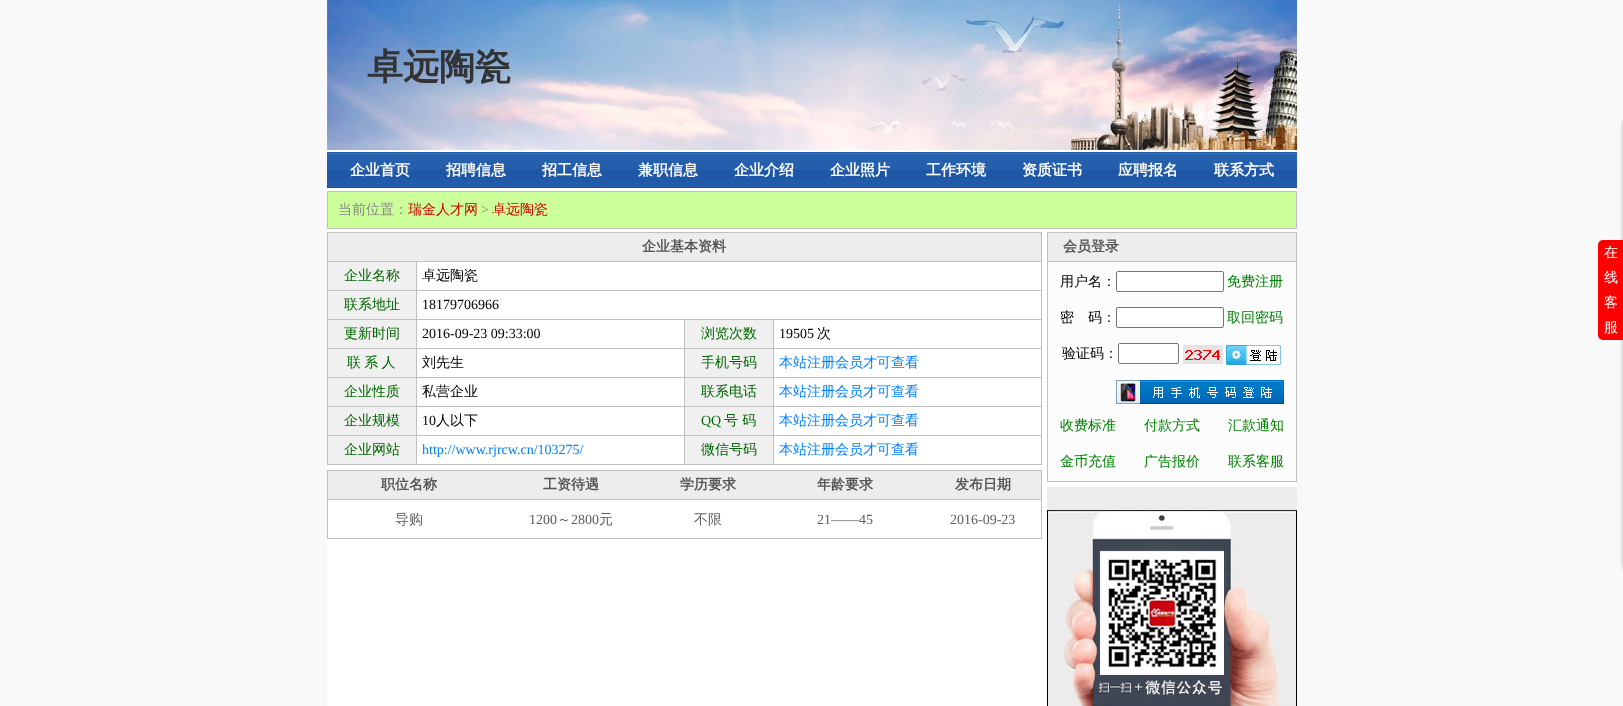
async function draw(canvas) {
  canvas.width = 1623;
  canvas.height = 706;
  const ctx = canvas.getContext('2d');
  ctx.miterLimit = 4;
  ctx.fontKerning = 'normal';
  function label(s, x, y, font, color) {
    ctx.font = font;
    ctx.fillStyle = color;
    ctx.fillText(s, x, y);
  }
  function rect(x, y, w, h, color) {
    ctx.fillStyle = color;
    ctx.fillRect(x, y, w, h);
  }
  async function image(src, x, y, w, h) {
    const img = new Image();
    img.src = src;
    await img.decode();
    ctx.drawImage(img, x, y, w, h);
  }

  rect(0, 0, 1623, 706, '#f9f9f9');
  rect(327, 150, 970, 41, '#fff');
  await image('assets/img1.png', 327, 0, 970, 150);
  label('卓远陶瓷', 367, 79, 'bold 36px WenQuanYi Zen Hei', '#333');
  await image('assets/img2.png', 327, 152, 970, 36);
  label('企业首页', 350, 175, 'bold 15px WenQuanYi Zen Hei', '#fff');
  label('招聘信息', 446, 175, 'bold 15px WenQuanYi Zen Hei', '#fff');
  label('招工信息', 542, 175, 'bold 15px WenQuanYi Zen Hei', '#fff');
  label('兼职信息', 638, 175, 'bold 15px WenQuanYi Zen Hei', '#fff');
  label('企业介绍', 734, 175, 'bold 15px WenQuanYi Zen Hei', '#fff');
  label('企业照片', 830, 175, 'bold 15px WenQuanYi Zen Hei', '#fff');
  label('工作环境', 926, 175, 'bold 15px WenQuanYi Zen Hei', '#fff');
  label('资质证书', 1022, 175, 'bold 15px WenQuanYi Zen Hei', '#fff');
  label('应聘报名', 1118, 175, 'bold 15px WenQuanYi Zen Hei', '#fff');
  label('联系方式', 1214, 175, 'bold 15px WenQuanYi Zen Hei', '#fff');
  rect(327, 229, 970, 477, '#fff');
  ctx.fillStyle = '#cf9';
  ctx.beginPath();
  ctx.rect(327.5, 191.5, 969, 37);
  ctx.fill();
  ctx.strokeStyle = '#c0c0c0';
  ctx.stroke();
  label('当前位置：', 338, 214, '500 14px WenQuanYi Zen Hei', '#888');
  label('瑞金人才网', 408, 214, '500 14px WenQuanYi Zen Hei', '#c00');
  label('>', 481, 214, '14px Liberation Serif', '#888');
  label('卓远陶瓷', 492, 214, '500 14px WenQuanYi Zen Hei', '#c00');
  rect(327, 232, 715, 1, '#c0c0c0');
  rect(327, 232, 1, 233, '#c0c0c0');
  rect(328, 233, 713, 28, '#ededed');
  rect(1041, 233, 1, 232, '#c0c0c0');
  rect(328, 261, 714, 1, '#c0c0c0');
  label('企业基本资料', 642, 251, 'bold 14px WenQuanYi Zen Hei', '#555');
  rect(328, 262, 88, 28, '#f0f0f0');
  rect(416, 262, 1, 203, '#c0c0c0');
  rect(328, 290, 714, 1, '#c0c0c0');
  label('企业名称', 344, 280, '500 14px WenQuanYi Zen Hei', '#060');
  label('卓远陶瓷', 422, 280, '500 14px WenQuanYi Zen Hei', '#000');
  rect(328, 291, 88, 28, '#f0f0f0');
  rect(328, 319, 714, 1, '#c0c0c0');
  label('联系地址', 344, 309, '500 14px WenQuanYi Zen Hei', '#060');
  label('18179706966', 422, 309, '14px Liberation Serif', '#000');
  rect(328, 320, 88, 28, '#f0f0f0');
  rect(328, 348, 89, 1, '#c0c0c0');
  label('更新时间', 344, 338, '500 14px WenQuanYi Zen Hei', '#060');
  rect(684, 320, 1, 145, '#c0c0c0');
  rect(417, 348, 268, 1, '#c0c0c0');
  label('2016-09-23 09:33:00', 422, 338, '14px Liberation Serif', '#000');
  rect(685, 320, 88, 28, '#f0f0f0');
  rect(773, 320, 1, 145, '#c0c0c0');
  rect(685, 348, 357, 1, '#c0c0c0');
  label('浏览次数', 701, 338, '500 14px WenQuanYi Zen Hei', '#060');
  label('19505', 779, 338, '14px Liberation Serif', '#000');
  label('次', 817, 338, '500 14px WenQuanYi Zen Hei', '#000');
  rect(328, 349, 88, 28, '#f0f0f0');
  rect(328, 377, 714, 1, '#c0c0c0');
  ctx.wordSpacing = '-1px';
  label('联 系 人', 347, 367, '500 14px WenQuanYi Zen Hei', '#060');
  ctx.wordSpacing = '0px';
  label('刘先生', 422, 367, '500 14px WenQuanYi Zen Hei', '#000');
  rect(685, 349, 88, 28, '#f0f0f0');
  label('手机号码', 701, 367, '500 14px WenQuanYi Zen Hei', '#060');
  label('本站注册会员才可查看', 779, 367, '500 14px WenQuanYi Zen Hei', '#0080ff');
  rect(328, 378, 88, 28, '#f0f0f0');
  rect(328, 406, 714, 1, '#c0c0c0');
  label('企业性质', 344, 396, '500 14px WenQuanYi Zen Hei', '#060');
  label('私营企业', 422, 396, '500 14px WenQuanYi Zen Hei', '#000');
  rect(685, 378, 88, 28, '#f0f0f0');
  label('联系电话', 701, 396, '500 14px WenQuanYi Zen Hei', '#060');
  label('本站注册会员才可查看', 779, 396, '500 14px WenQuanYi Zen Hei', '#0080ff');
  rect(328, 407, 88, 28, '#f0f0f0');
  rect(328, 435, 714, 1, '#c0c0c0');
  label('企业规模', 344, 425, '500 14px WenQuanYi Zen Hei', '#060');
  label('10', 422, 425, '14px Liberation Serif', '#000');
  label('人以下', 436, 425, '500 14px WenQuanYi Zen Hei', '#000');
  rect(685, 407, 88, 28, '#f0f0f0');
  label('QQ', 701, 425, '14px Liberation Serif', '#060');
  label('号 码', 724, 425, '500 14px WenQuanYi Zen Hei', '#060');
  label('本站注册会员才可查看', 779, 425, '500 14px WenQuanYi Zen Hei', '#0080ff');
  rect(328, 436, 88, 28, '#f0f0f0');
  rect(328, 464, 714, 1, '#c0c0c0');
  label('企业网站', 344, 454, '500 14px WenQuanYi Zen Hei', '#060');
  label('http://www.rjrcw.cn/103275/', 422, 454, '14px Liberation Serif', '#0080ff');
  rect(685, 436, 88, 28, '#f0f0f0');
  label('微信号码', 701, 454, '500 14px WenQuanYi Zen Hei', '#060');
  label('本站注册会员才可查看', 779, 454, '500 14px WenQuanYi Zen Hei', '#0080ff');
  ctx.strokeRect(327.5, 470.5, 714, 68);
  rect(328, 471, 713, 28, '#ededed');
  rect(328, 499, 713, 1, '#c0c0c0');
  label('职位名称', 381, 489, 'bold 14px WenQuanYi Zen Hei', '#555');
  label('工资待遇', 543, 489, 'bold 14px WenQuanYi Zen Hei', '#555');
  label('学历要求', 680, 489, 'bold 14px WenQuanYi Zen Hei', '#555');
  label('年龄要求', 817, 489, 'bold 14px WenQuanYi Zen Hei', '#555');
  label('发布日期', 955, 489, 'bold 14px WenQuanYi Zen Hei', '#555');
  label('导购', 395, 524, '500 14px WenQuanYi Zen Hei', '#606060');
  label('1200', 529, 524, '14px Liberation Serif', '#606060');
  label('～', 557, 524, '500 14px WenQuanYi Zen Hei', '#606060');
  label('2800', 571, 524, '14px Liberation Serif', '#606060');
  label('元', 599, 524, '500 14px WenQuanYi Zen Hei', '#606060');
  label('不限', 694, 524, '500 14px WenQuanYi Zen Hei', '#606060');
  label('21——45', 817, 524, '14px Liberation Serif', '#606060');
  label('2016-09-23', 950, 524, '14px Liberation Serif', '#606060');
  rect(1048, 262, 248, 219, '#fcfcfc');
  ctx.strokeRect(1047.5, 232.5, 249, 249);
  rect(1048, 261, 248, 1, '#c0c0c0');
  rect(1048, 233, 248, 28, '#ededed');
  label('会员登录', 1063, 251, 'bold 14px WenQuanYi Zen Hei', '#555');
  label('用户名：', 1060, 286, '500 14px WenQuanYi Zen Hei', '#000');
  ctx.fillStyle = '#fff';
  ctx.beginPath();
  ctx.roundRect(1116.5, 271.5, 107, 20, 1.5);
  ctx.fill();
  ctx.strokeStyle = '#767676';
  ctx.stroke();
  label('免费注册', 1227, 286, '500 14px WenQuanYi Zen Hei', '#008000');
  label('密　码：', 1060, 322, '500 14px WenQuanYi Zen Hei', '#000');
  ctx.fillStyle = '#fff';
  ctx.beginPath();
  ctx.roundRect(1116.5, 307.5, 107, 20, 1.5);
  ctx.fill();
  ctx.stroke();
  label('取回密码', 1227, 322, '500 14px WenQuanYi Zen Hei', '#008000');
  label('验证码：', 1062, 358, '500 14px WenQuanYi Zen Hei', '#000');
  ctx.fillStyle = '#fff';
  ctx.beginPath();
  ctx.roundRect(1118.5, 343.5, 60, 20, 1.5);
  ctx.fill();
  ctx.stroke();
  await image('assets/img3.png', 1183, 345, 40, 19);
  await image('assets/img4.png', 1226, 345, 55, 20);
  await image('assets/img5.png', 1116, 380, 168, 24);
  label('收费标准', 1060, 430, '500 14px WenQuanYi Zen Hei', '#008000');
  label('付款方式', 1144, 430, '500 14px WenQuanYi Zen Hei', '#008000');
  label('汇款通知', 1228, 430, '500 14px WenQuanYi Zen Hei', '#008000');
  label('金币充值', 1060, 466, '500 14px WenQuanYi Zen Hei', '#008000');
  label('广告报价', 1144, 466, '500 14px WenQuanYi Zen Hei', '#008000');
  label('联系客服', 1228, 466, '500 14px WenQuanYi Zen Hei', '#008000');
  await image('assets/img6.png', 1047, 487, 250, 219);
  ctx.fillStyle = '#333';
  ctx.filter = 'blur(2.5px)';
  ctx.beginPath();
  ctx.roundRect(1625, 120, 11, 450, 5);
  ctx.fill();
  ctx.filter = 'none';
  ctx.fillStyle = '#f00';
  ctx.beginPath();
  ctx.roundRect(1598, 240, 25, 100, [5, 0, 0, 5]);
  ctx.fill();
  label('在', 1604, 257, '500 14px WenQuanYi Zen Hei', '#fff');
  label('线', 1604, 282, '500 14px WenQuanYi Zen Hei', '#fff');
  label('客', 1604, 307, '500 14px WenQuanYi Zen Hei', '#fff');
  label('服', 1604, 332, '500 14px WenQuanYi Zen Hei', '#fff');
}

draw(document.querySelector('canvas'));
